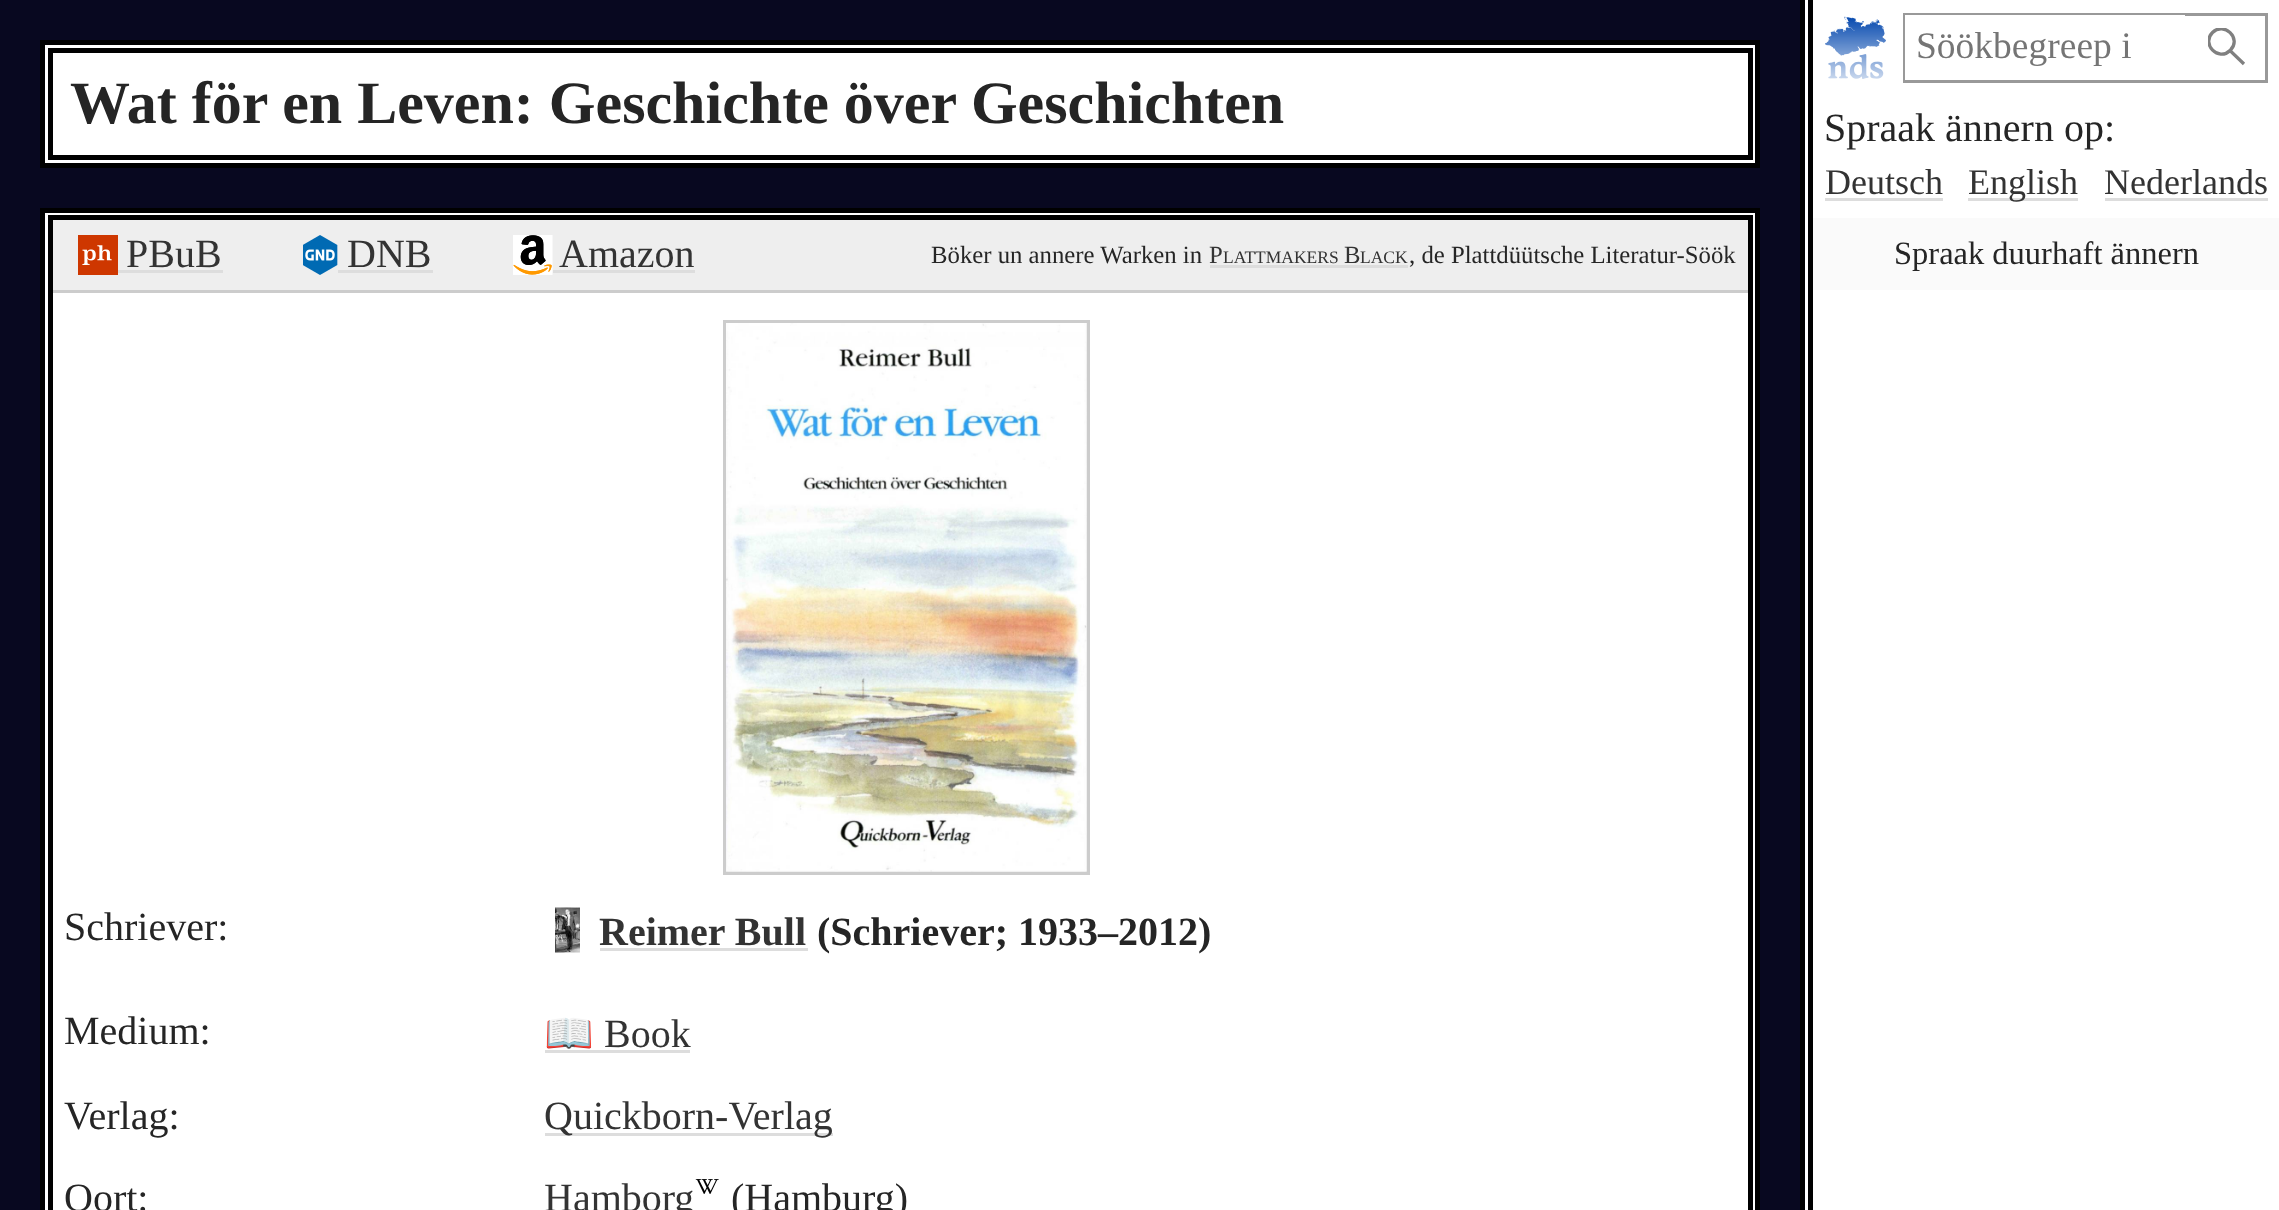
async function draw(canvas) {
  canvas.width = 2279;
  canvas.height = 1210;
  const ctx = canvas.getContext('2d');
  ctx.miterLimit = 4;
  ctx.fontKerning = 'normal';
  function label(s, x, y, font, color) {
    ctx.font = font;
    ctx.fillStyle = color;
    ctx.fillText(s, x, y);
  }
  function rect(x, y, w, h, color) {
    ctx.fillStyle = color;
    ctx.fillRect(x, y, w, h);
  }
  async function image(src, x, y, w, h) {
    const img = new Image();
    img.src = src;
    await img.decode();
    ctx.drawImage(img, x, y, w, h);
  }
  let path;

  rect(0, 0, 2279, 1210, '#080820');
  ctx.fillStyle = '#fff';
  ctx.beginPath();
  ctx.rect(42.5, 42.5, 1715, 123);
  ctx.fill();
  ctx.strokeStyle = '#000';
  ctx.lineWidth = 5;
  ctx.stroke();
  ctx.strokeRect(50.5, 50.5, 1700, 107);
  label('Wat för en Leven: Geschichte över Geschichten', 70, 123, 'bold 60px Liberation Serif', '#252525');
  rect(1805, 0, 474, 1210, '#fff');
  rect(1800, 0, 5, 1210, '#000');
  rect(1808, 0, 5, 1210, '#000');
  await image('assets/img1.png', 1825, 16, 61, 63);
  ctx.strokeStyle = '#999';
  ctx.lineWidth = 3;
  ctx.strokeRect(1904.5, 14.5, 362, 67);
  rect(1905, 15, 280, 65, '#fff');
  label('Söökbegreep i', 1916, 58, '37.5px Liberation Serif', '#757575');
  ctx.save();
  ctx.beginPath();
  ctx.rect(2208, 28, 40, 40);
  ctx.clip();
  path = new Path2D('M2230.5 50C2242 38.5 2224 21 2212.5 32.5C2201 44 2218.5 62 2230 50.5L2244 64');
  ctx.strokeStyle = '#808080';
  ctx.lineWidth = 3.3;
  ctx.stroke(path);
  ctx.restore();
  label('Spraak ännern op:', 1824, 141, '40px Liberation Serif', '#252525');
  label('Deutsch', 1825, 194, '36px Liberation Serif', '#333');
  rect(1825, 198, 118, 3, '#ddd');
  rect(1968, 198, 110, 3, '#ddd');
  label('English', 1968, 194, '36px Liberation Serif', '#333');
  label('Nederlands', 2104, 194, '36px Liberation Serif', '#333');
  rect(2105, 198, 163, 3, '#ddd');
  rect(1813, 218, 466, 72, '#fafafa');
  label('Spraak duurhaft ännern', 1894, 264, '32.5px Liberation Serif', '#252525');
  ctx.fillStyle = '#fff';
  ctx.beginPath();
  ctx.rect(42.5, 210.5, 1715, 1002);
  ctx.fill();
  ctx.strokeStyle = '#000';
  ctx.lineWidth = 5;
  ctx.stroke();
  ctx.strokeRect(50.5, 217.5, 1700, 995);
  rect(53, 220, 1695, 70, '#eee');
  rect(53, 290, 1695, 3, '#ccc');
  await image('assets/img2.png', 78, 235, 40, 40);
  label('PBuB', 126, 267, '40px Liberation Serif', '#333');
  rect(118, 270, 105, 3, '#ddd');
  await image('assets/img3.png', 303, 235, 35, 40);
  label('DNB', 347, 267, '40px Liberation Serif', '#333');
  rect(338, 270, 95, 3, '#ddd');
  await image('assets/img4.png', 513, 235, 40, 40);
  label('Amazon', 559, 267, '40px Liberation Serif', '#333');
  rect(553, 270, 142, 3, '#ddd');
  label('Böker un annere Warken in', 931, 263, '24.75px Liberation Serif', '#252525');
  label('P', 1209, 263, '24.75px Liberation Serif', '#333');
  label('LATTMAKERS', 1223, 263, '17.5px Liberation Serif', '#333');
  rect(1210, 265, 198, 3, '#ddd');
  label('B', 1344, 263, '24.75px Liberation Serif', '#333');
  label('LACK', 1360, 263, '17.5px Liberation Serif', '#333');
  label(', de Plattdüütsche Literatur-Söök', 1409, 263, '24.75px Liberation Serif', '#252525');
  await image('assets/img5.png', 726, 323, 361, 549);
  ctx.strokeStyle = '#ccc';
  ctx.lineWidth = 3;
  ctx.strokeRect(724.5, 321.5, 364, 552);
  label('Schriever:', 64, 940, '40px Liberation Serif', '#252525');
  await image('assets/img6.png', 555, 907, 25, 46);
  label('Reimer Bull', 599, 945, 'bold 40px Liberation Serif', '#333');
  rect(600, 948, 208, 3, '#ddd');
  label('(Schriever; 1933–2012)', 817, 945, 'bold 40px Liberation Serif', '#252525');
  label('Medium:', 64, 1044, '40px Liberation Serif', '#252525');
  rect(545, 1050, 145, 3, '#ddd');
  label('📖', 544, 1047, '40px Noto Color Emoji', '#333');
  label('Book', 604, 1047, '40px Liberation Serif', '#333');
  label('Verlag:', 64, 1129, '40px Liberation Serif', '#252525');
  rect(545, 1133, 288, 3, '#ddd');
  label('Quickborn-Verlag', 544, 1129, '40px Liberation Serif', '#333');
  label('Oort:', 64, 1211, '40px Liberation Serif', '#252525');
  label('Hamborg', 544, 1211, '40px Liberation Serif', '#333');
  await image('assets/img7.png', 695, 1179, 24, 15);
  label('(Hamburg)', 731, 1211, '40px Liberation Serif', '#252525');
}

draw(document.querySelector('canvas'));
